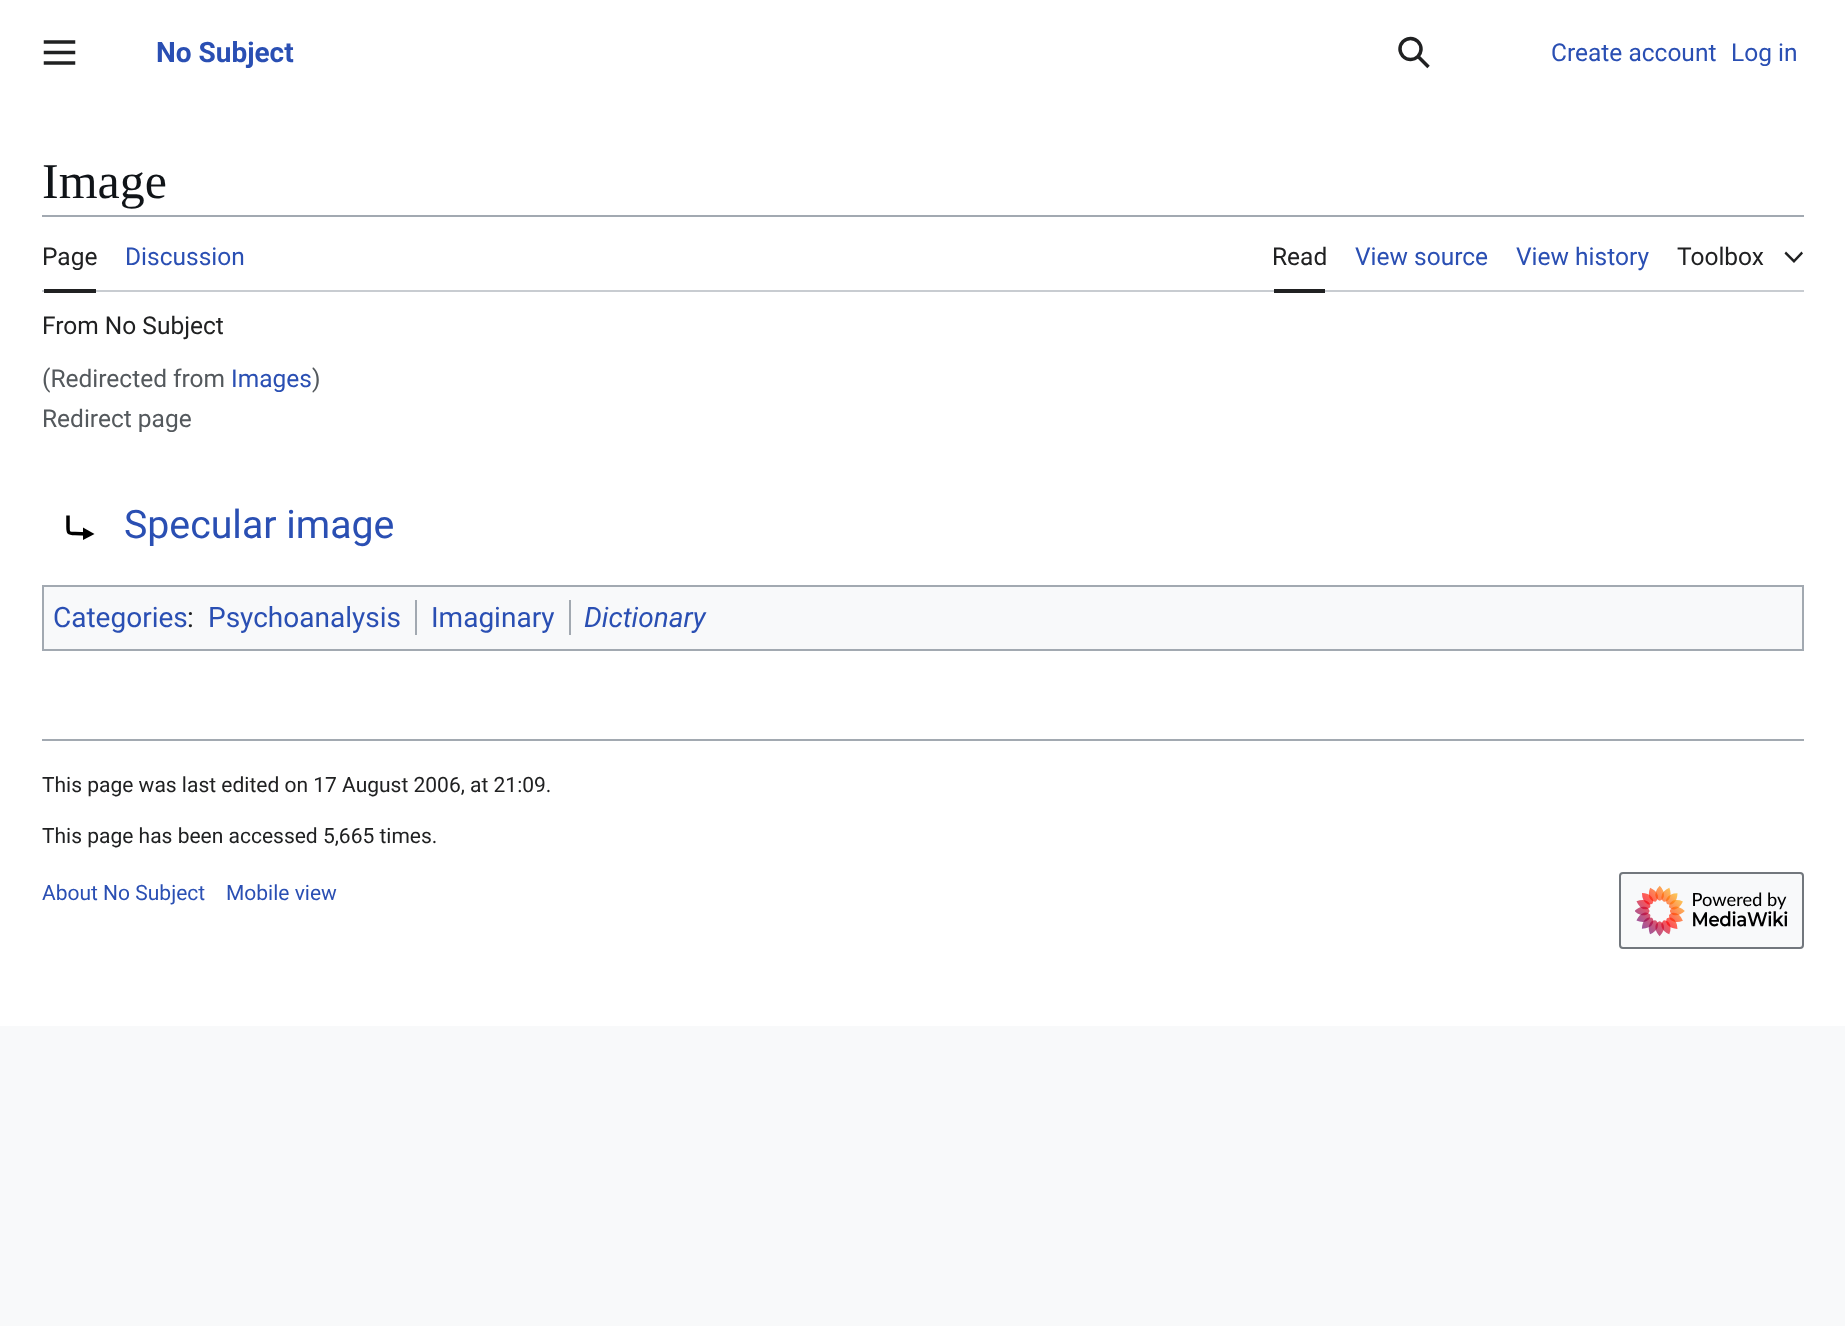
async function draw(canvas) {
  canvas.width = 1845;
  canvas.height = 1326;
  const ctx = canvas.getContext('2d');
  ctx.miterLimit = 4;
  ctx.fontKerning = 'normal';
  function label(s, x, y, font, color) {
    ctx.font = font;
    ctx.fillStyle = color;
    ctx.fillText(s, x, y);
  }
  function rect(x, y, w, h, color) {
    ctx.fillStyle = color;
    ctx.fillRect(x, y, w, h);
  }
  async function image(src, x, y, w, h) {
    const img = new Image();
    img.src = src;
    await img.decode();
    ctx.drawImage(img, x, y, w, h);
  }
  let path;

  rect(0, 0, 1845, 1326, '#f8f9fa');
  rect(0, 0, 1845, 1026, '#fff');
  await image('assets/img1.png', 43, 40, 33, 25);
  label('No Subject', 156, 62, 'bold 28px Roboto', '#2a4fb3');
  await image('assets/img2.png', 1398, 36, 32, 33);
  label('Create account', 1551, 61, '24.5px Roboto', '#2a4fb3');
  label('Log in', 1731, 61, '24.5px Roboto', '#2a4fb3');
  label('Image', 42, 198, '50px Liberation Serif', '#101418');
  rect(42, 215, 1762, 2, '#a2a9b1');
  rect(42, 290, 1762, 2, '#c8ccd1');
  rect(44, 289, 52, 4, '#202122');
  label('Page', 42, 265, '24.5px Roboto', '#202122');
  label('Discussion', 125, 265, '24.5px Roboto', '#2a4fb3');
  rect(1274, 289, 51, 4, '#202122');
  label('Read', 1272, 265, '24.5px Roboto', '#202122');
  label('View source', 1355, 265, '24.5px Roboto', '#2a4fb3');
  label('View history', 1516, 265, '24.5px Roboto', '#2a4fb3');
  label('Toolbox', 1677, 265, '24.5px Roboto', '#202122');
  path = new Path2D('M1801.5 251.5L1794 259.5L1786 251.5L1784.5 253.5L1794 263L1803 253.5Z');
  ctx.fill(path);
  label('From No Subject', 42, 334, '24.5px Roboto', '#202122');
  label('(Redirected from', 42, 387, '24.5px Roboto', '#54595d');
  label('Images', 231, 387, '24.5px Roboto', '#2a4fb3');
  label(')', 312, 387, '24.5px Roboto', '#54595d');
  label('Redirect page', 42, 427, '24.5px Roboto', '#54595d');
  label('Specular image', 124, 538, '39.25px Roboto', '#2a4fb3');
  path = new Path2D('M68 515.5V525.5C68 532.5 67.5 533.5 75 533.5L87.5 534');
  ctx.strokeStyle = '#000';
  ctx.lineWidth = 3.5;
  ctx.stroke(path);
  ctx.fillStyle = '#000';
  path = new Path2D('M83 527.5V540L94.5 534Z');
  ctx.fill(path);
  ctx.fillStyle = '#f8f9fa';
  ctx.beginPath();
  ctx.rect(43, 586, 1760, 64);
  ctx.fill();
  ctx.strokeStyle = '#a2a9b1';
  ctx.lineWidth = 2;
  ctx.stroke();
  label('Categories', 53, 627, '28px Roboto', '#2a4fb3');
  label(':', 187, 627, '28px Roboto', '#202122');
  label('Psychoanalysis', 208, 627, '28px Roboto', '#2a4fb3');
  rect(415, 600, 2, 35, '#a2a9b1');
  label('Imaginary', 431, 627, '28px Roboto', '#2a4fb3');
  rect(569, 600, 2, 35, '#a2a9b1');
  label('Dictionary', 584, 627, 'italic 28px Roboto', '#2a4fb3');
  rect(42, 739, 1762, 2, '#a2a9b1');
  label('This page was last edited on 17 August 2006, at 21:09.', 42, 792, '21px Roboto', '#202122');
  label('This page has been accessed 5,665 times.', 42, 843, '21px Roboto', '#202122');
  label('About No Subject', 42, 900, '21px Roboto', '#2a4fb3');
  label('Mobile view', 226, 900, '21px Roboto', '#2a4fb3');
  ctx.fillStyle = '#f8f9fa';
  ctx.beginPath();
  ctx.roundRect(1620, 873, 183, 75, 3);
  ctx.fill();
  ctx.strokeStyle = '#72777d';
  ctx.stroke();
  await image('assets/img3.png', 1635, 885, 153, 52);
}

draw(document.querySelector('canvas'));
